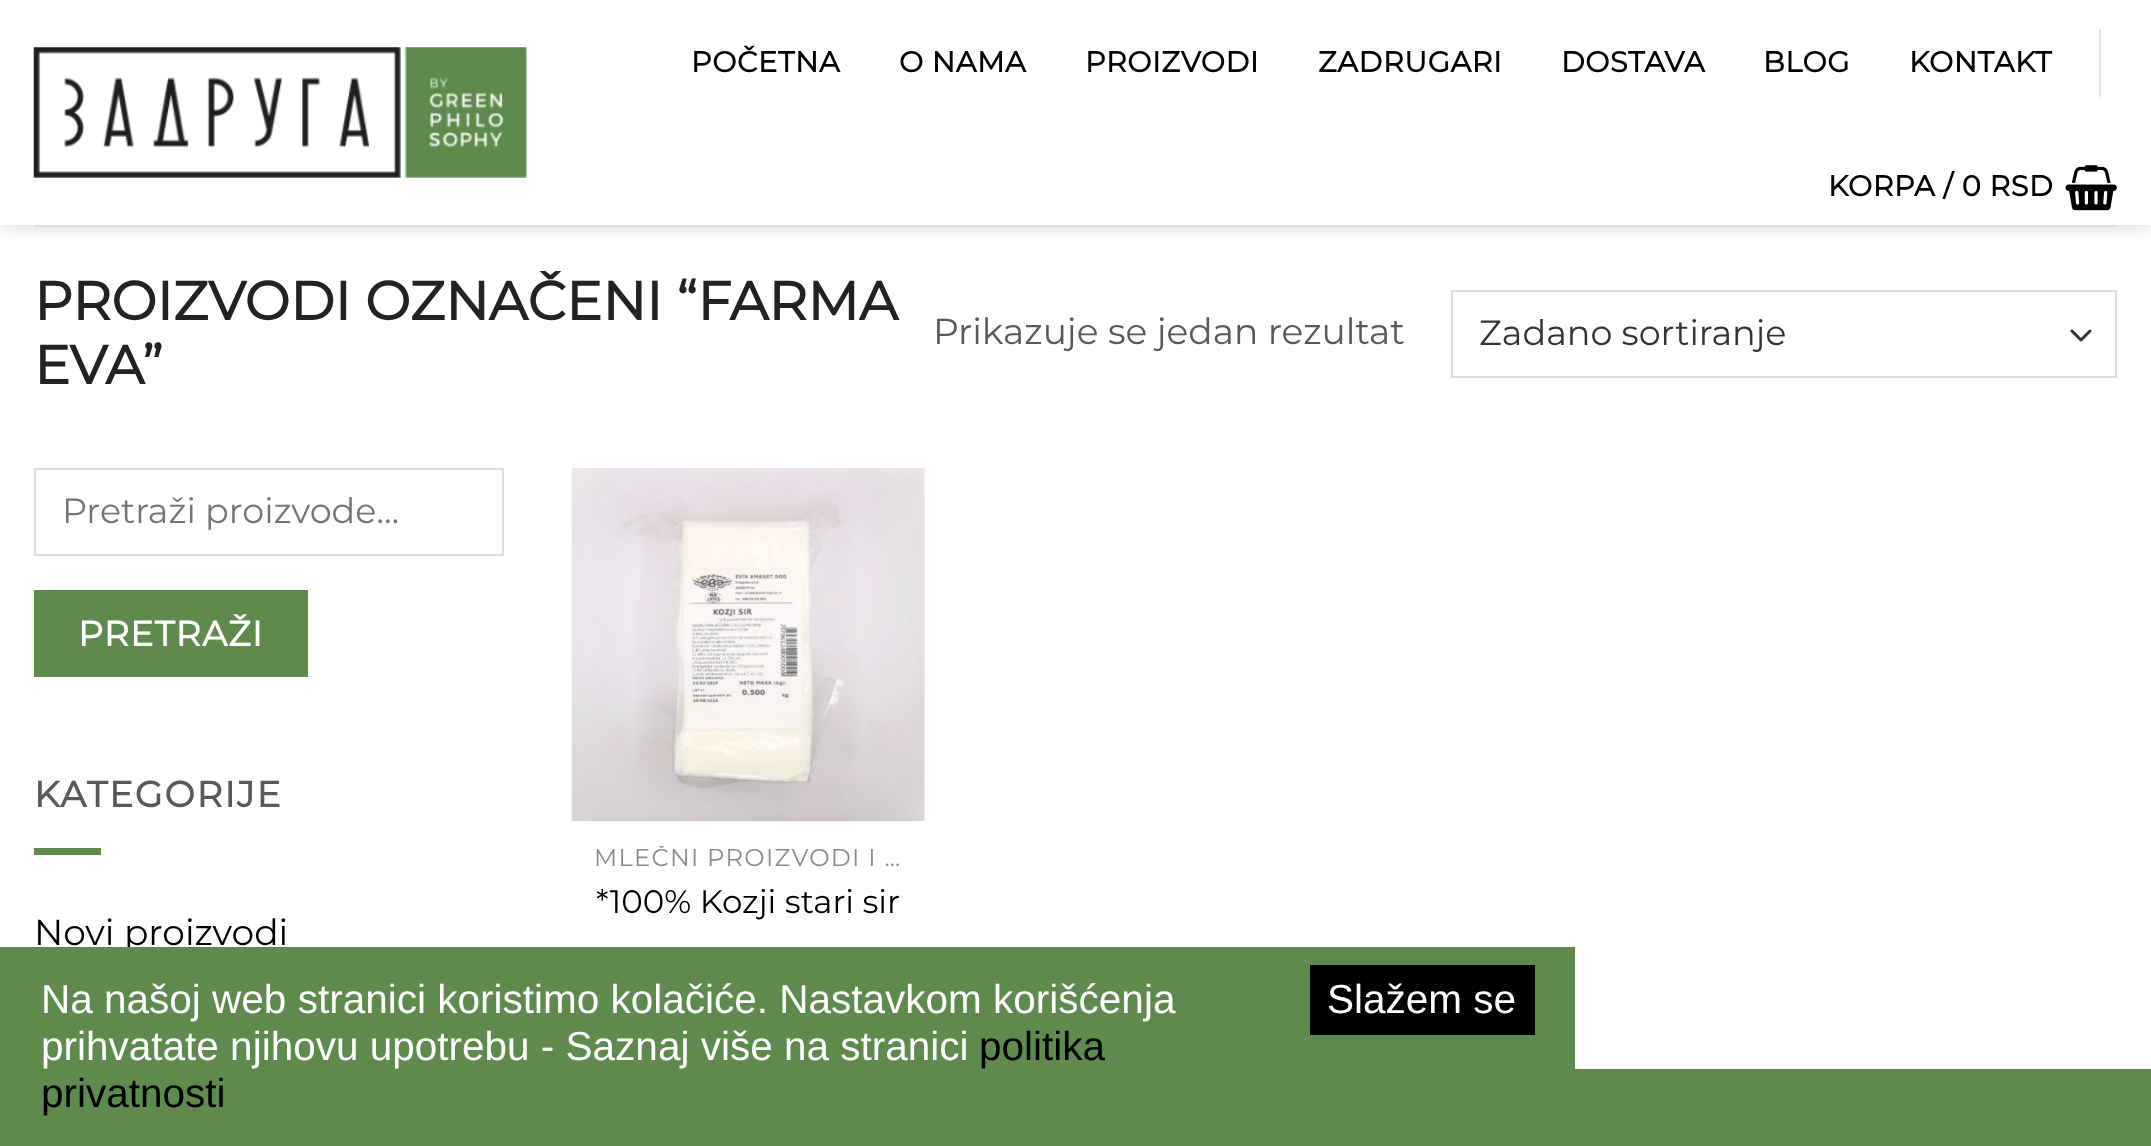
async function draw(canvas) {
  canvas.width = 2151;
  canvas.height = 1146;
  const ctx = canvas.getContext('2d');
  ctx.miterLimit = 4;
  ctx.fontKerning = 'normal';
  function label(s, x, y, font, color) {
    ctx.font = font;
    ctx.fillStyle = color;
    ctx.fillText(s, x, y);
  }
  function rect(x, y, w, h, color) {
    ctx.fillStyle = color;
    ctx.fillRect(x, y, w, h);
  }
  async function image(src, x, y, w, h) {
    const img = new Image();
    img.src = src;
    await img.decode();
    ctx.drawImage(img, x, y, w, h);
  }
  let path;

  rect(0, 0, 2151, 1146, '#fff');
  ctx.save();
  ctx.beginPath();
  ctx.rect(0, 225, 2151, 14);
  ctx.clip();
  ctx.fillStyle = '#00000026';
  ctx.filter = 'blur(11px)';
  ctx.beginPath();
  ctx.rect(2, 2, 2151, 225);
  ctx.fill();
  ctx.filter = 'none';
  ctx.restore();
  await image('assets/img1.png', 33, 47, 494, 131);
  ctx.letterSpacing = '0.6px';
  label('POČETNA', 691, 72, 'bold 28.75px Montserrat', '#000');
  label('O NAMA', 899, 72, 'bold 28.75px Montserrat', '#000');
  label('PROIZVODI', 1085, 72, 'bold 28.75px Montserrat', '#000');
  label('ZADRUGARI', 1318, 72, 'bold 28.75px Montserrat', '#000');
  label('DOSTAVA', 1561, 72, 'bold 28.75px Montserrat', '#000');
  label('BLOG', 1763, 72, 'bold 28.75px Montserrat', '#000');
  label('KONTAKT', 1909, 72, 'bold 28.75px Montserrat', '#000');
  rect(2099, 29, 2, 68, '#e6e6e6');
  label('KORPA / 0 RSD', 1828, 196, 'bold 28.75px Montserrat', '#000');
  await image('assets/img2.png', 2065, 165, 52, 46);
  rect(34, 225, 2083, 2, '#dcdcdc');
  ctx.letterSpacing = '0px';
  label('PROIZVODI OZNAČENI “FARMA', 34, 320, 'bold 54px Montserrat', '#222');
  label('EVA”', 34, 384, 'bold 54px Montserrat', '#222');
  label('Prikazuje se jedan rezultat', 933, 344, '100 36px Montserrat', '#595959');
  path = new Path2D('M2072 331L2081 340L2090 331');
  ctx.strokeStyle = '#333';
  ctx.lineWidth = 3;
  ctx.lineCap = 'round';
  ctx.lineJoin = 'round';
  ctx.stroke(path);
  ctx.strokeStyle = '#ddd';
  ctx.lineWidth = 2;
  ctx.lineJoin = 'miter';
  ctx.strokeRect(1452, 291, 664, 86);
  label('Zadano sortiranje', 1479, 345, '100 35px Montserrat', '#333');
  ctx.strokeRect(35, 469, 468, 86);
  label('Pretraži proizvode…', 62, 523, '100 35px Montserrat', '#757575');
  rect(34, 590, 274, 87, '#5e8a4d');
  ctx.letterSpacing = '1px';
  label('PRETRAŽI', 78, 646, 'bold 35px Montserrat', '#fff');
  ctx.letterSpacing = '1.75px';
  label('KATEGORIJE', 34, 807, 'bold 36px Montserrat', '#595959');
  rect(34, 848, 67, 7, '#5e8a4d');
  ctx.letterSpacing = '0px';
  label('Novi proizvodi', 34, 945, '100 36px Montserrat', '#000');
  await image('assets/img3.png', 571, 468, 354, 354);
  ctx.save();
  ctx.beginPath();
  ctx.rect(594, 846, 308, 29);
  ctx.clip();
  ctx.letterSpacing = '1.25px';
  label('MLEČNI PROIZVODI I …', 594, 866, '100 24.25px Montserrat', '#8b8b8b');
  ctx.restore();
  label('*100% Kozji stari sir', 596, 913, '100 32.5px Montserrat', '#000');
  rect(0, 947, 1575, 199, '#5e8a4d');
  label('Na našoj web stranici koristimo kolačiće. Nastavkom korišćenja', 41, 1013, '40.5px Liberation Sans', '#fff');
  label('prihvatate njihovu upotrebu - Saznaj više na stranici', 41, 1060, '40.5px Liberation Sans', '#fff');
  label('politika', 979, 1060, '40.5px Liberation Sans', '#000');
  label('privatnosti', 41, 1107, '40.5px Liberation Sans', '#000');
  rect(1310, 965, 225, 70, '#000');
  label('Slažem se', 1327, 1013, '40.5px Liberation Sans', '#fff');
  rect(1575, 1069, 576, 77, '#5e8a4d');
}

draw(document.querySelector('canvas'));
